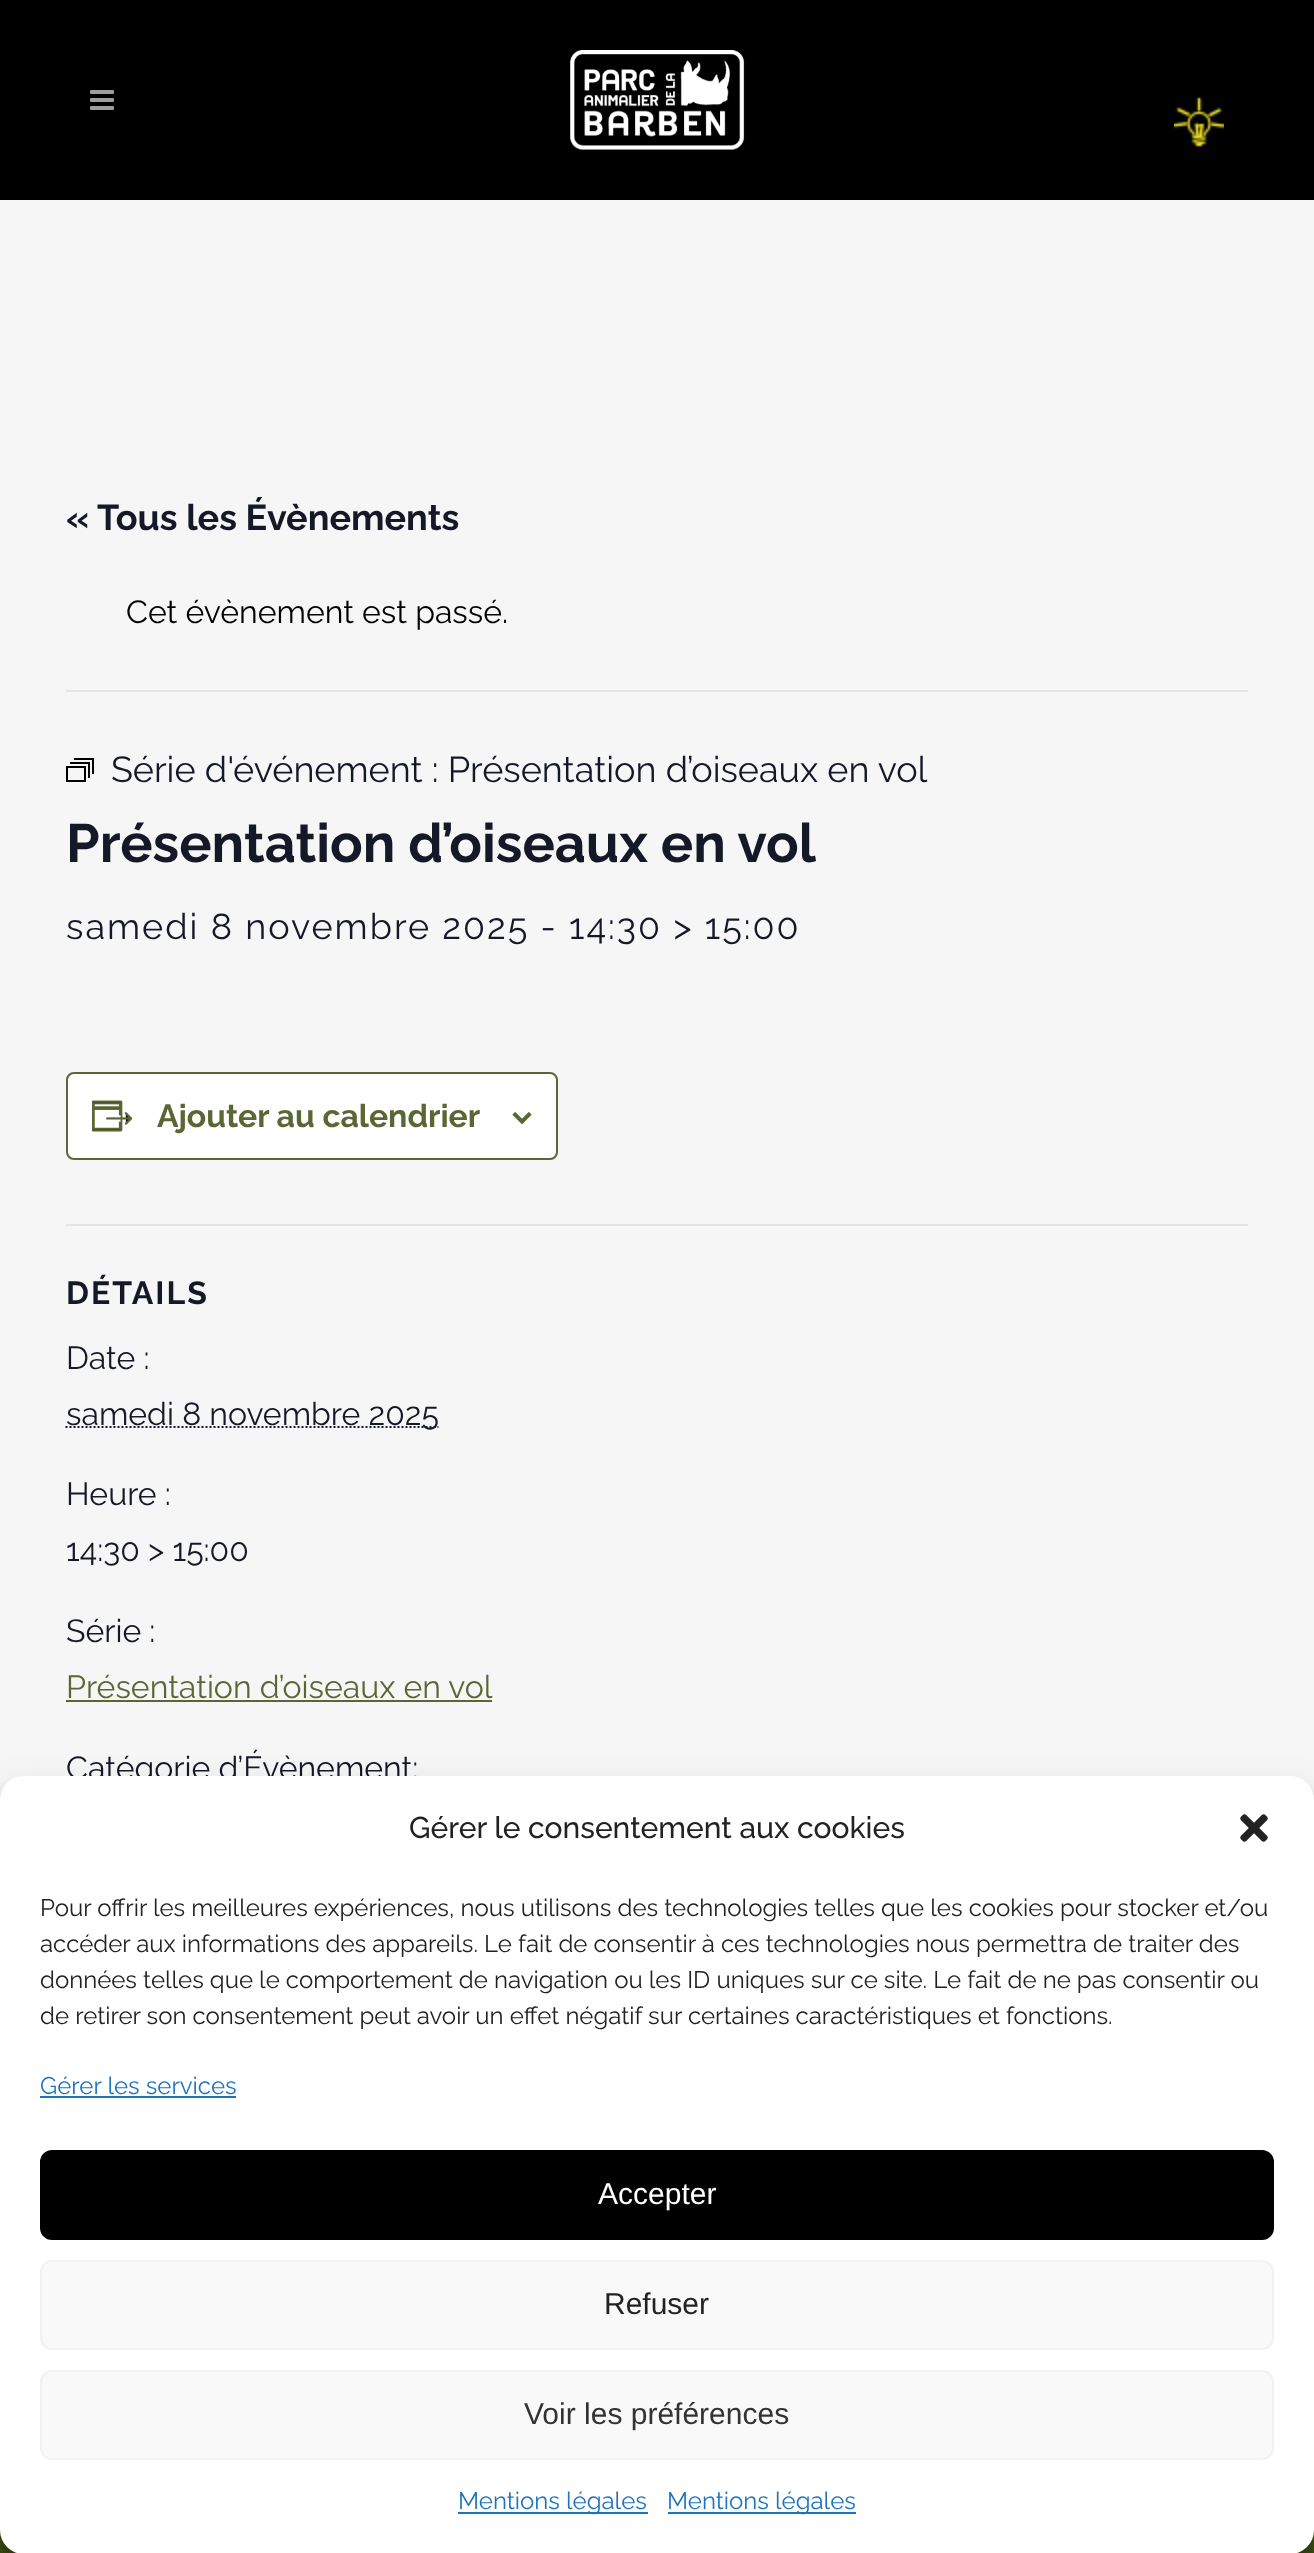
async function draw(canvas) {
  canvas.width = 1314;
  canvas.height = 2553;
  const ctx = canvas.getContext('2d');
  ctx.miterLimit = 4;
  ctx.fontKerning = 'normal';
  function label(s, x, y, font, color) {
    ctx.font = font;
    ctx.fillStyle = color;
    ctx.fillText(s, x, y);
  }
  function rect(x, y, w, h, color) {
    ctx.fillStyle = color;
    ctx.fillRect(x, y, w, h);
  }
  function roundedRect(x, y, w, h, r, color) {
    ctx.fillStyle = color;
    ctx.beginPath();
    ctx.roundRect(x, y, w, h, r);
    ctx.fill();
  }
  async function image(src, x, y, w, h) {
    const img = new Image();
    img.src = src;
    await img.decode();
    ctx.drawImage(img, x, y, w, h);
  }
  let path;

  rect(0, 0, 1314, 2553, '#f6f6f6');
  rect(0, 0, 1314, 200, '#000');
  await image('assets/img1.png', 90, 90, 24, 20);
  await image('assets/img2.png', 570, 50, 175, 100);
  await image('assets/img3.png', 1174, 97, 50, 50);
  label('« Tous les Évènements', 66, 530, 'bold 36px Raleway', '#141827');
  rect(66, 690, 1182, 2, '#e4e4e4');
  label('Cet évènement est passé.', 126, 623, '32px Raleway', '#000');
  ctx.strokeStyle = '#000';
  ctx.lineWidth = 2;
  ctx.strokeRect(67, 767, 18, 14);
  path = new Path2D('M70 763H89V778M74 759H93V774');
  ctx.stroke(path);
  label('Série d\'événement : Présentation d’oiseaux en vol', 111, 782, '36px Raleway', '#141827');
  label('Présentation d’oiseaux en vol', 66, 862, 'bold 54px Raleway', '#141827');
  ctx.letterSpacing = '2px';
  label('samedi 8 novembre 2025 - 14:30 > 15:00', 66, 939, '36px Raleway', '#141827');
  ctx.fillStyle = '#fff';
  ctx.beginPath();
  ctx.roundRect(67, 1073, 490, 86, 7);
  ctx.fill();
  ctx.strokeStyle = '#5a6734';
  ctx.stroke();
  await image('assets/img4.png', 92, 1100, 41, 32);
  ctx.letterSpacing = '0px';
  label('Ajouter au calendrier', 157, 1127, 'bold 32px Raleway', '#5a6734');
  await image('assets/img5.png', 512, 1112, 20, 12);
  rect(66, 1224, 1182, 2, '#e4e4e4');
  ctx.letterSpacing = '2px';
  label('DÉTAILS', 66, 1304, 'bold 32px Raleway', '#141827');
  ctx.letterSpacing = '0px';
  label('Date :', 66, 1369, '32px Raleway', '#141827');
  path = new Path2D('M65.5 1427H438.5');
  ctx.strokeStyle = '#141827';
  ctx.setLineDash([2, 2]);
  ctx.stroke(path);
  label('samedi 8 novembre 2025', 66, 1425, '32px Raleway', '#141827');
  label('Heure :', 66, 1505, '32px Raleway', '#141827');
  label('14:30 > 15:00', 66, 1561, '32px Raleway', '#141827');
  label('Série :', 66, 1642, '32px Raleway', '#141827');
  label('Présentation d’oiseaux en vol', 66, 1698, '32px Raleway', '#5a6734');
  rect(66, 1700, 426, 2, '#5a6734');
  label('Catégorie d’Évènement:', 66, 1779, '32px Raleway', '#141827');
  rect(0, 2530, 1314, 23, '#445414');
  ctx.fillStyle = '#0000003b';
  ctx.filter = 'blur(6px)';
  ctx.beginPath();
  ctx.roundRect(0, 1788, 1314, 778, 24);
  ctx.fill();
  ctx.filter = 'none';
  ctx.fillStyle = '#00000030';
  ctx.filter = 'blur(20px)';
  ctx.beginPath();
  ctx.roundRect(0, 1796, 1314, 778, 24);
  ctx.fill();
  ctx.filter = 'none';
  roundedRect(0, 1776, 1314, 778, 24, '#fff');
  label('Gérer le consentement aux cookies', 409, 1838, '500 30px Raleway', '#222');
  await image('assets/img6.png', 1240, 1814, 28, 28);
  label('Pour offrir les meilleures expériences, nous utilisons des technologies telles que les cookies pour stocker et/ou', 40, 1916, '24px Raleway', '#222');
  label('accéder aux informations des appareils. Le fait de consentir à ces technologies nous permettra de traiter des', 40, 1952, '24px Raleway', '#222');
  label('données telles que le comportement de navigation ou les ID uniques sur ce site. Le fait de ne pas consentir ou', 40, 1988, '24px Raleway', '#222');
  label('de retirer son consentement peut avoir un effet négatif sur certaines caractéristiques et fonctions.', 40, 2024, '24px Raleway', '#222');
  label('Gérer les services', 40, 2094, '24px Raleway', '#1e73be');
  rect(40, 2096, 196, 2, '#1e73be');
  ctx.fillStyle = '#000';
  ctx.beginPath();
  ctx.roundRect(41, 2151, 1232, 88, 11);
  ctx.fill();
  ctx.strokeStyle = '#000';
  ctx.setLineDash([]);
  ctx.stroke();
  label('Accepter', 598, 2204, '30px Liberation Sans', '#fff');
  ctx.fillStyle = '#f9f9f9';
  ctx.beginPath();
  ctx.roundRect(41, 2261, 1232, 88, 11);
  ctx.fill();
  ctx.strokeStyle = '#f2f2f2';
  ctx.stroke();
  label('Refuser', 604, 2314, '30px Liberation Sans', '#222');
  ctx.fillStyle = '#f9f9f9';
  ctx.beginPath();
  ctx.roundRect(41, 2371, 1232, 88, 11);
  ctx.fill();
  ctx.stroke();
  label('Voir les préférences', 524, 2424, '30px Liberation Sans', '#333');
  rect(458, 2512, 190, 2, '#1e73be');
  label('Mentions légales', 458, 2509, '24px Raleway', '#1e73be');
  rect(668, 2512, 188, 2, '#1e73be');
  label('Mentions légales', 667, 2509, '24px Raleway', '#1e73be');
}

draw(document.querySelector('canvas'));
